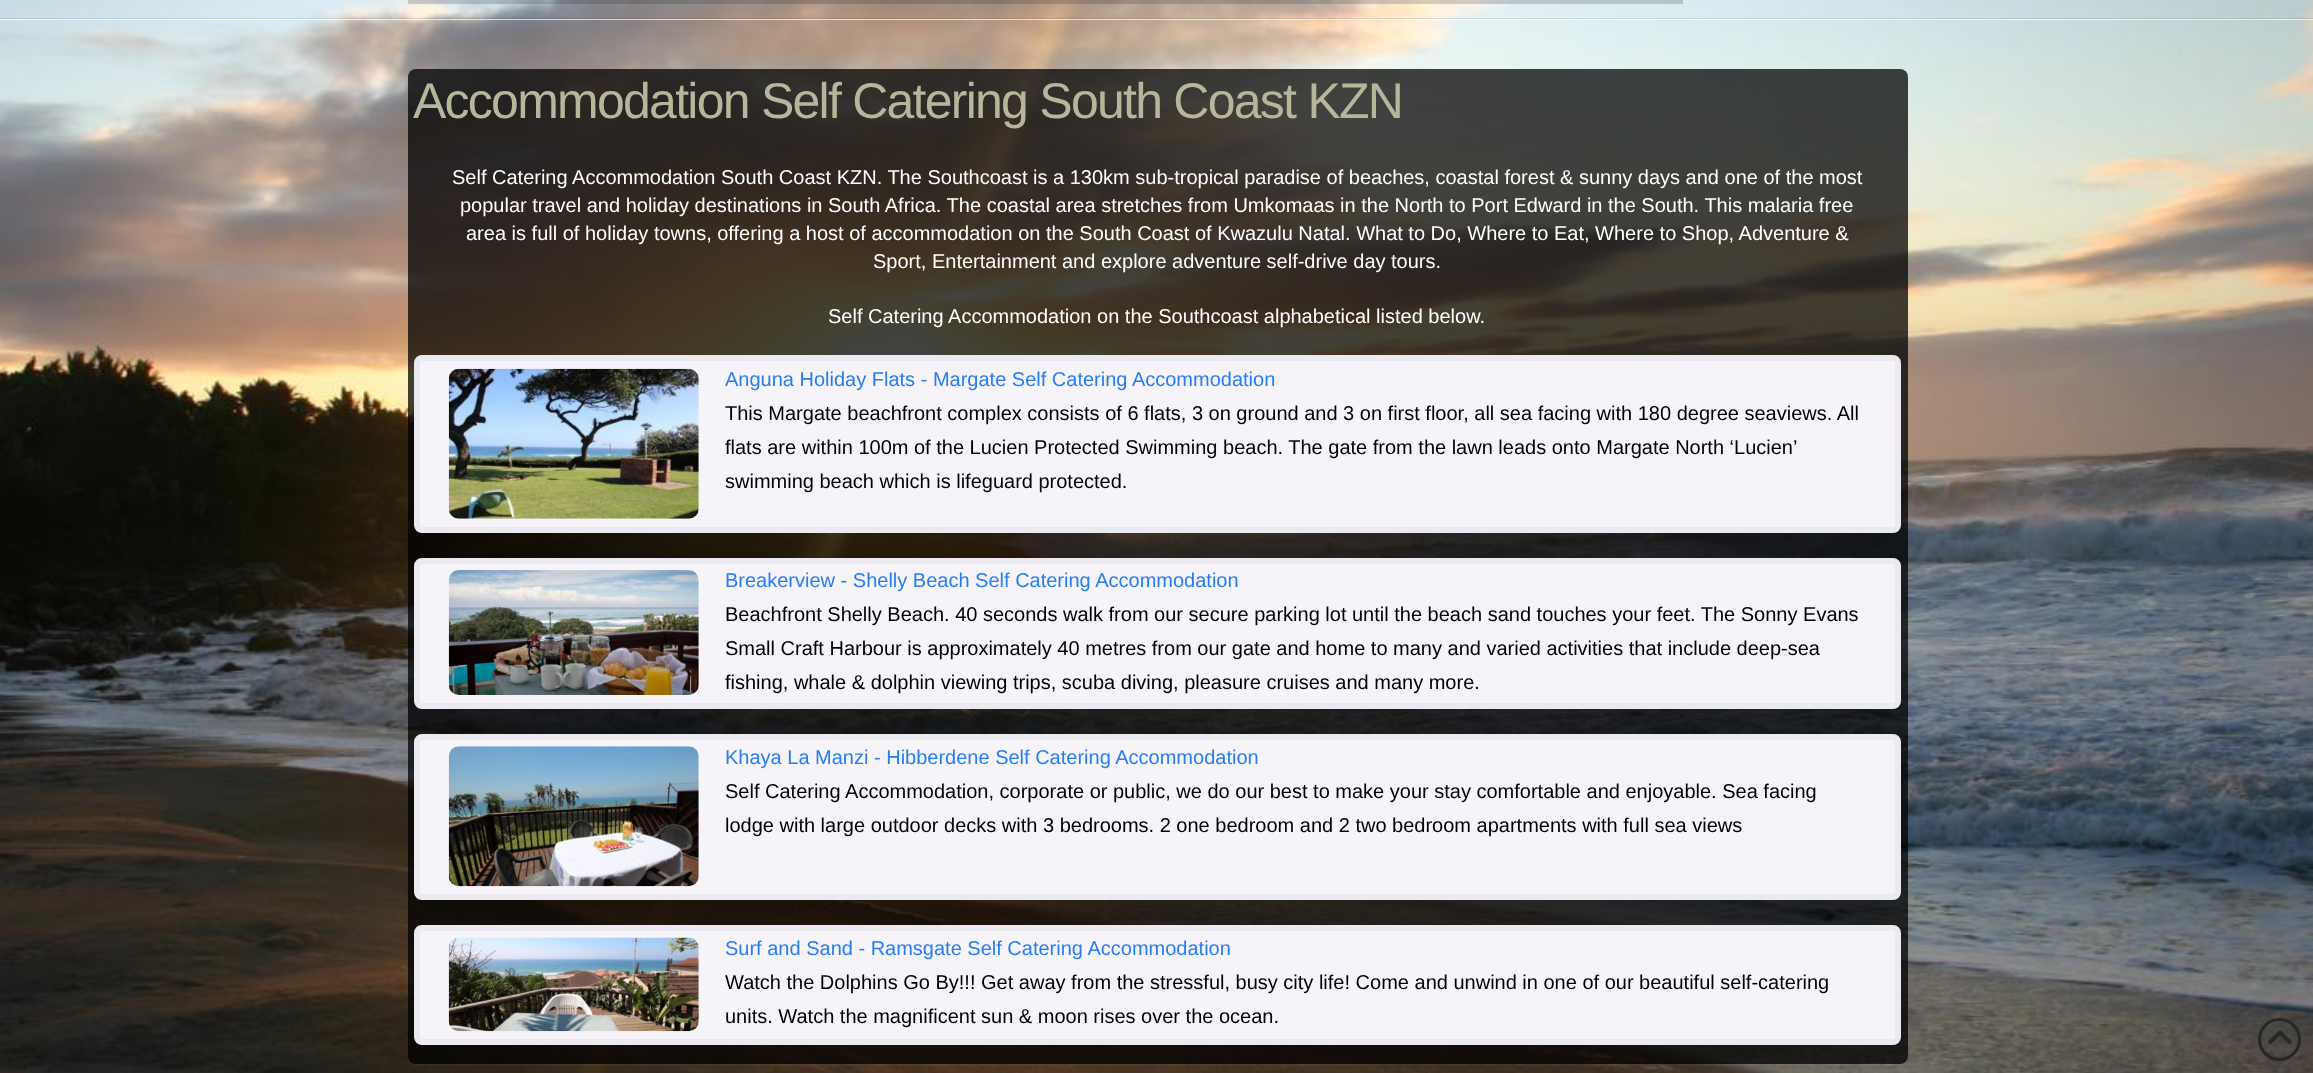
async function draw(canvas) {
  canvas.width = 2313;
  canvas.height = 1073;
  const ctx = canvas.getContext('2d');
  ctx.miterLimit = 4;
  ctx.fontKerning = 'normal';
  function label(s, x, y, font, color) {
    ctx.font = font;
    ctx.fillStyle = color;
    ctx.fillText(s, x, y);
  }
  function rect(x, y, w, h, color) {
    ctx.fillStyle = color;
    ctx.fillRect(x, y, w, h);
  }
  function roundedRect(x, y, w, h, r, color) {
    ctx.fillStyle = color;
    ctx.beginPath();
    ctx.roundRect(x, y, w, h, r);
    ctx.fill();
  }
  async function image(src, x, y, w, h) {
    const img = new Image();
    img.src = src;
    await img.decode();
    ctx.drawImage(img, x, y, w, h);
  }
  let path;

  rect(0, 0, 2313, 1073, '#fff');
  await image('assets/img1.png', 0, 0, 2313, 1073);
  ctx.fillStyle = '#ffffffb5';
  path = new Path2D('M0 19V20H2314V-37V19Z');
  ctx.fill(path);
  rect(0, 18, 2313, 1, '#0000001a');
  rect(408, 0, 1275, 4, '#22222233');
  ctx.save();
  path = new Path2D('M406 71H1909V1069H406ZM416 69H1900C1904.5 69 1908 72.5 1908 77V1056C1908 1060.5 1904.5 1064 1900 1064H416C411.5 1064 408 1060.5 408 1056V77C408 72.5 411.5 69 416 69Z');
  ctx.clip(path, 'evenodd');
  ctx.fillStyle = '#ffffff12';
  ctx.filter = 'blur(1px)';
  ctx.beginPath();
  ctx.roundRect(410, 75, 1495, 990, 5);
  ctx.fill();
  ctx.filter = 'none';
  ctx.restore();
  roundedRect(408, 69, 1500, 995, 8, '#000000bd');
  ctx.letterSpacing = '-1.75px';
  label('Accommodation Self Catering South Coast KZN', 413, 118, '50px Liberation Sans', '#b5b69b');
  ctx.letterSpacing = '0px';
  label('Self Catering Accommodation South Coast KZN. The Southcoast is a 130km sub-tropical paradise of beaches, coastal forest & sunny days and one of the most', 452, 184, '20px Liberation Sans', '#fff');
  label('popular travel and holiday destinations in South Africa. The coastal area stretches from Umkomaas in the North to Port Edward in the South. This malaria free', 460, 212, '20px Liberation Sans', '#fff');
  label('area is full of holiday towns, offering a host of accommodation on the South Coast of Kwazulu Natal. What to Do, Where to Eat, Where to Shop, Adventure &', 466, 240, '20px Liberation Sans', '#fff');
  label('Sport, Entertainment and explore adventure self-drive day tours.', 873, 268, '20px Liberation Sans', '#fff');
  label('Self Catering Accommodation on the Southcoast alphabetical listed below.', 828, 323, '20px Liberation Sans', '#fff');
  ctx.fillStyle = '#f6f3f9';
  ctx.beginPath();
  ctx.roundRect(417, 358, 1481, 172, 5);
  ctx.fill();
  ctx.strokeStyle = '#eceaf1';
  ctx.lineWidth = 6;
  ctx.stroke();
  await image('assets/img2.png', 448, 368, 251, 151);
  label('Anguna Holiday Flats - Margate Self Catering Accommodation', 725, 386, '20px Liberation Sans', '#257ef0');
  label('This Margate beachfront complex consists of 6 flats, 3 on ground and 3 on first floor, all sea facing with 180 degree seaviews. All', 725, 420, '20px Liberation Sans', '#000');
  label('flats are within 100m of the Lucien Protected Swimming beach. The gate from the lawn leads onto Margate North ‘Lucien’', 725, 454, '20px Liberation Sans', '#000');
  label('swimming beach which is lifeguard protected.', 725, 488, '20px Liberation Sans', '#000');
  ctx.fillStyle = '#f6f3f9';
  ctx.beginPath();
  ctx.roundRect(417, 561, 1481, 145, 5);
  ctx.fill();
  ctx.stroke();
  await image('assets/img3.png', 448, 570, 251, 125);
  label('Breakerview - Shelly Beach Self Catering Accommodation', 725, 587, '20px Liberation Sans', '#257ef0');
  label('Beachfront Shelly Beach. 40 seconds walk from our secure parking lot until the beach sand touches your feet. The Sonny Evans', 725, 621, '20px Liberation Sans', '#000');
  label('Small Craft Harbour is approximately 40 metres from our gate and home to many and varied activities that include deep-sea', 725, 655, '20px Liberation Sans', '#000');
  label('fishing, whale & dolphin viewing trips, scuba diving, pleasure cruises and many more.', 725, 689, '20px Liberation Sans', '#000');
  ctx.fillStyle = '#f6f3f9';
  ctx.beginPath();
  ctx.roundRect(417, 737, 1481, 160, 5);
  ctx.fill();
  ctx.stroke();
  await image('assets/img4.png', 448, 746, 251, 141);
  label('Khaya La Manzi - Hibberdene Self Catering Accommodation', 725, 764, '20px Liberation Sans', '#257ef0');
  label('Self Catering Accommodation, corporate or public, we do our best to make your stay comfortable and enjoyable. Sea facing', 725, 798, '20px Liberation Sans', '#000');
  label('lodge with large outdoor decks with 3 bedrooms. 2 one bedroom and 2 two bedroom apartments with full sea views', 725, 832, '20px Liberation Sans', '#000');
  ctx.fillStyle = '#f6f3f9';
  ctx.beginPath();
  ctx.roundRect(417, 928, 1481, 114, 5);
  ctx.fill();
  ctx.stroke();
  await image('assets/img5.png', 448, 937, 251, 95);
  label('Surf and Sand - Ramsgate Self Catering Accommodation', 725, 955, '20px Liberation Sans', '#257ef0');
  label('Watch the Dolphins Go By!!! Get away from the stressful, busy city life! Come and unwind in one of our beautiful self-catering', 725, 989, '20px Liberation Sans', '#000');
  label('units. Watch the magnificent sun & moon rises over the ocean.', 725, 1023, '20px Liberation Sans', '#000');
  ctx.beginPath();
  ctx.arc(2279.5, 1039.5, 20, 0, 2 * Math.PI);
  ctx.strokeStyle = '#272727';
  ctx.lineWidth = 3;
  ctx.stroke();
  await image('assets/img6.png', 2268, 1030, 24, 14);
}

draw(document.querySelector('canvas'));
